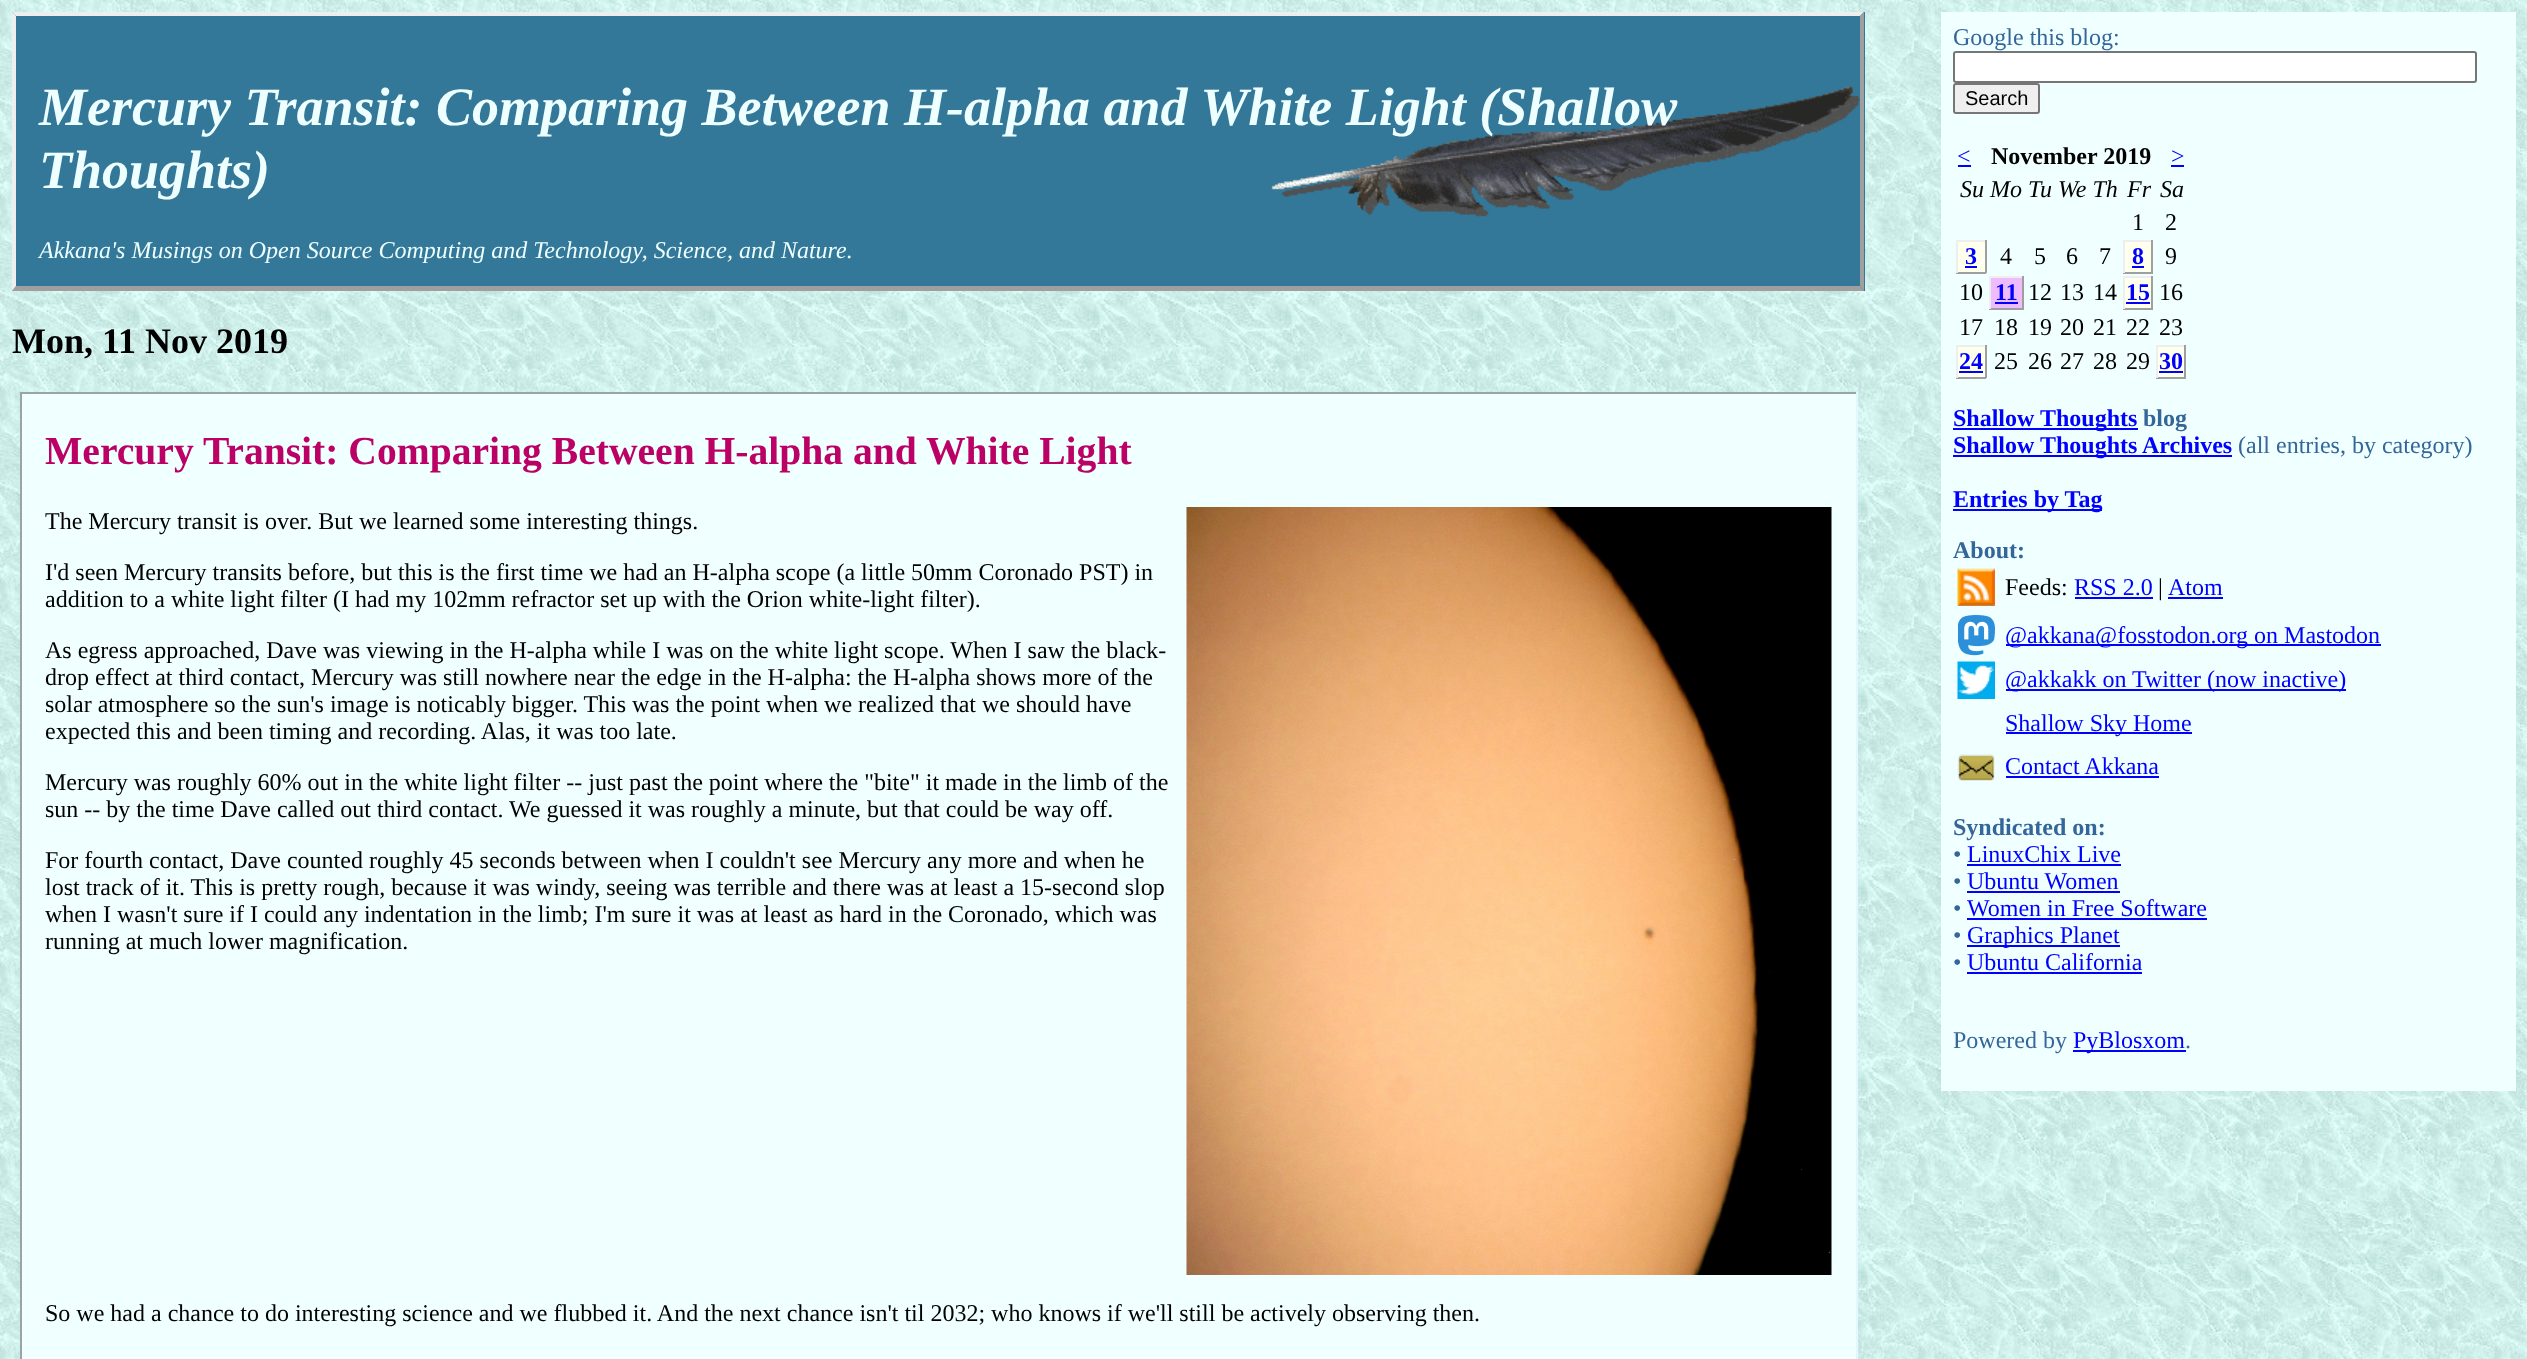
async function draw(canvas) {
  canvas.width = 2527;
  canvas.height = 1359;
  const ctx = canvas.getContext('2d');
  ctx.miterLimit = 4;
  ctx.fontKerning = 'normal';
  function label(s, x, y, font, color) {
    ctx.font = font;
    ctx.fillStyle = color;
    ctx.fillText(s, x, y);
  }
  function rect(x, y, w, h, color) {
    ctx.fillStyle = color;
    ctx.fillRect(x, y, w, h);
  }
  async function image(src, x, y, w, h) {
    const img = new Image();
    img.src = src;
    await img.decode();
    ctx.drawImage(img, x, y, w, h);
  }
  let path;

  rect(0, 0, 2527, 1359, '#fff');
  await image('assets/img1.png', 0, 0, 2527, 1359);
  rect(12, 12, 1853, 279, '#379');
  await image('assets/img2.png', 1271, 86, 589, 131);
  ctx.fillStyle = '#eee';
  path = new Path2D('M12 12H1864L1860 16H16Z');
  ctx.fill(path);
  ctx.fillStyle = '#9f9f9f';
  path = new Path2D('M1864 12V291L1860 286V16Z');
  ctx.fill(path);
  path = new Path2D('M1864 291H12L16 286H1860Z');
  ctx.fill(path);
  ctx.fillStyle = '#eee';
  path = new Path2D('M12 291V12L16 16V286Z');
  ctx.fill(path);
  label('Mercury Transit: Comparing Between H-alpha and White Light (Shallow', 39, 125, 'italic bold 54px Liberation Serif', '#eff');
  label('Thoughts)', 39, 188, 'italic bold 54px Liberation Serif', '#eff');
  label('Akkana\'s Musings on Open Source Computing and Technology, Science, and Nature.', 39, 258, 'italic 24px Liberation Serif', '#eff');
  label('Mon, 11 Nov 2019', 12, 353, 'bold 36px Liberation Serif', '#000');
  rect(22, 394, 1834, 965, '#f0ffff');
  rect(20, 392, 1837, 2, '#98a4aa');
  rect(1856, 392, 2, 967, '#e4f6ff');
  rect(20, 392, 2, 967, '#98a4aa');
  label('Mercury Transit: Comparing Between H-alpha and White Light', 45, 464, 'bold 39.6px Liberation Serif', '#b06');
  label('The Mercury transit is over. But we learned some interesting things.', 45, 529, '24px Liberation Serif', '#000');
  await image('assets/img3.png', 1186, 507, 646, 768);
  label('I\'d seen Mercury transits before, but this is the first time we had an H-alpha scope (a little 50mm Coronado PST) in', 45, 580, '24px Liberation Serif', '#000');
  label('addition to a white light filter (I had my 102mm refractor set up with the Orion white-light filter).', 45, 607, '24px Liberation Serif', '#000');
  label('As egress approached, Dave was viewing in the H-alpha while I was on the white light scope. When I saw the black-', 45, 658, '24px Liberation Serif', '#000');
  label('drop effect at third contact, Mercury was still nowhere near the edge in the H-alpha: the H-alpha shows more of the', 45, 685, '24px Liberation Serif', '#000');
  label('solar atmosphere so the sun\'s image is noticably bigger. This was the point when we realized that we should have', 45, 712, '24px Liberation Serif', '#000');
  label('expected this and been timing and recording. Alas, it was too late.', 45, 739, '24px Liberation Serif', '#000');
  label('Mercury was roughly 60% out in the white light filter -- just past the point where the "bite" it made in the limb of the', 45, 790, '24px Liberation Serif', '#000');
  label('sun -- by the time Dave called out third contact. We guessed it was roughly a minute, but that could be way off.', 45, 817, '24px Liberation Serif', '#000');
  label('For fourth contact, Dave counted roughly 45 seconds between when I couldn\'t see Mercury any more and when he', 45, 868, '24px Liberation Serif', '#000');
  label('lost track of it. This is pretty rough, because it was windy, seeing was terrible and there was at least a 15-second slop', 45, 895, '24px Liberation Serif', '#000');
  label('when I wasn\'t sure if I could any indentation in the limb; I\'m sure it was at least as hard in the Coronado, which was', 45, 922, '24px Liberation Serif', '#000');
  label('running at much lower magnification.', 45, 949, '24px Liberation Serif', '#000');
  label('So we had a chance to do interesting science and we flubbed it. And the next chance isn\'t til 2032; who knows if we\'ll still be actively observing then.', 45, 1321, '24px Liberation Serif', '#000');
  rect(1941, 12, 575, 1079, '#f0ffff');
  label('Google this blog:', 1953, 45, '24px Liberation Serif', '#369');
  ctx.fillStyle = '#fff';
  ctx.beginPath();
  ctx.roundRect(1954, 52, 522, 30, 2);
  ctx.fill();
  ctx.strokeStyle = '#767676';
  ctx.lineWidth = 2;
  ctx.stroke();
  ctx.fillStyle = '#efefef';
  ctx.beginPath();
  ctx.roundRect(1954, 84, 85, 29, 2);
  ctx.fill();
  ctx.stroke();
  label('Search', 1965, 105, '20px Liberation Sans', '#000');
  label('<', 1957, 164, '24px Liberation Serif', '#00f');
  rect(1958, 165, 13, 2, '#00f');
  label('November 2019', 1991, 164, 'bold 24px Liberation Serif', '#000');
  label('>', 2171, 164, '24px Liberation Serif', '#00f');
  rect(2171, 165, 13, 2, '#00f');
  label('Su Mo Tu We Th', 1960, 197, 'italic 24px Liberation Serif', '#000');
  label('Fr', 2127, 197, 'italic 24px Liberation Serif', '#000');
  label('Sa', 2160, 197, 'italic 24px Liberation Serif', '#000');
  label('1', 2132, 230, '24px Liberation Serif', '#000');
  label('2', 2165, 230, '24px Liberation Serif', '#000');
  rect(1958, 242, 27, 30, '#ffe');
  rect(1956, 240, 30, 2, '#eee');
  rect(1985, 240, 2, 33, '#9f9f9f');
  rect(1956, 272, 30, 2, '#9f9f9f');
  rect(1956, 240, 2, 33, '#eee');
  label('3', 1965, 264, 'bold 24px Liberation Serif', '#00f');
  rect(1965, 266, 12, 2, '#00f');
  label('4', 2000, 264, '24px Liberation Serif', '#000');
  label('5', 2034, 264, '24px Liberation Serif', '#000');
  label('6', 2066, 264, '24px Liberation Serif', '#000');
  label('7', 2099, 264, '24px Liberation Serif', '#000');
  rect(2125, 242, 26, 30, '#ffe');
  rect(2123, 240, 30, 2, '#eee');
  rect(2151, 240, 2, 33, '#9f9f9f');
  rect(2123, 272, 30, 2, '#9f9f9f');
  rect(2123, 240, 2, 33, '#eee');
  label('8', 2132, 264, 'bold 24px Liberation Serif', '#00f');
  rect(2132, 266, 12, 2, '#00f');
  label('9', 2165, 264, '24px Liberation Serif', '#000');
  label('10', 1959, 300, '24px Liberation Serif', '#000');
  rect(1991, 278, 31, 30, '#ebf');
  rect(1989, 276, 35, 2, '#eee');
  rect(2022, 276, 2, 33, '#9f9f9f');
  rect(1989, 308, 35, 2, '#9f9f9f');
  rect(1989, 276, 2, 33, '#eee');
  label('11', 1995, 300, 'bold 24px Liberation Serif', '#00f');
  rect(1995, 302, 23, 2, '#00f');
  label('12', 2028, 300, '24px Liberation Serif', '#000');
  label('13', 2060, 300, '24px Liberation Serif', '#000');
  label('14', 2093, 300, '24px Liberation Serif', '#000');
  rect(2125, 278, 26, 30, '#ffe');
  rect(2123, 276, 30, 2, '#eee');
  rect(2151, 276, 2, 33, '#9f9f9f');
  rect(2123, 308, 30, 2, '#9f9f9f');
  rect(2123, 276, 2, 33, '#eee');
  label('15', 2126, 300, 'bold 24px Liberation Serif', '#00f');
  rect(2126, 302, 24, 2, '#00f');
  label('16', 2159, 300, '24px Liberation Serif', '#000');
  label('17', 1959, 335, '24px Liberation Serif', '#000');
  label('18', 1994, 335, '24px Liberation Serif', '#000');
  label('19', 2028, 335, '24px Liberation Serif', '#000');
  label('20', 2060, 335, '24px Liberation Serif', '#000');
  label('21', 2093, 335, '24px Liberation Serif', '#000');
  label('22', 2126, 335, '24px Liberation Serif', '#000');
  label('23', 2159, 335, '24px Liberation Serif', '#000');
  rect(1958, 347, 27, 30, '#ffe');
  rect(1956, 345, 30, 2, '#eee');
  rect(1985, 345, 2, 33, '#9f9f9f');
  rect(1956, 377, 30, 2, '#9f9f9f');
  rect(1956, 345, 2, 33, '#eee');
  label('24', 1959, 369, 'bold 24px Liberation Serif', '#00f');
  rect(1959, 371, 24, 2, '#00f');
  label('25', 1994, 369, '24px Liberation Serif', '#000');
  label('26', 2028, 369, '24px Liberation Serif', '#000');
  label('27', 2060, 369, '24px Liberation Serif', '#000');
  label('28', 2093, 369, '24px Liberation Serif', '#000');
  label('29', 2126, 369, '24px Liberation Serif', '#000');
  rect(2158, 347, 26, 30, '#ffe');
  rect(2156, 345, 30, 2, '#eee');
  rect(2184, 345, 2, 33, '#9f9f9f');
  rect(2156, 377, 30, 2, '#9f9f9f');
  rect(2156, 345, 2, 33, '#eee');
  label('30', 2159, 369, 'bold 24px Liberation Serif', '#00f');
  rect(2159, 371, 24, 2, '#00f');
  rect(1953, 428, 185, 2, '#00f');
  label('Shallow Thoughts', 1953, 426, 'bold 24px Liberation Serif', '#00f');
  label('blog', 2143, 426, 'bold 24px Liberation Serif', '#369');
  rect(1953, 455, 279, 2, '#00f');
  label('Shallow Thoughts Archives', 1953, 453, 'bold 24px Liberation Serif', '#00f');
  label('(all entries, by category)', 2238, 453, '24px Liberation Serif', '#369');
  rect(1953, 509, 149, 2, '#00f');
  label('Entries by Tag', 1953, 507, 'bold 24px Liberation Serif', '#00f');
  label('About:', 1953, 558, 'bold 24px Liberation Serif', '#369');
  await image('assets/img4.png', 1957, 568, 38, 38);
  label('Feeds:', 2005, 595, '24px Liberation Serif', '#000');
  label('RSS 2.0', 2074, 595, '24px Liberation Serif', '#00f');
  rect(2075, 597, 78, 2, '#00f');
  label('|', 2158, 595, '24px Liberation Serif', '#000');
  label('Atom', 2168, 595, '24px Liberation Serif', '#00f');
  rect(2168, 597, 55, 2, '#00f');
  await image('assets/img5.png', 1958, 615, 37, 41);
  rect(2006, 644, 375, 2, '#00f');
  label('@akkana@fosstodon.org on Mastodon', 2005, 643, '24px Liberation Serif', '#00f');
  await image('assets/img6.png', 1957, 661, 38, 38);
  rect(2006, 689, 340, 2, '#00f');
  label('@akkakk on Twitter (now inactive)', 2005, 687, '24px Liberation Serif', '#00f');
  rect(2006, 732, 186, 2, '#00f');
  label('Shallow Sky Home', 2005, 731, '24px Liberation Serif', '#00f');
  await image('assets/img7.png', 1957, 754, 38, 27);
  label('Contact Akkana', 2005, 774, '24px Liberation Serif', '#00f');
  rect(2006, 776, 153, 2, '#00f');
  label('Syndicated on:', 1953, 835, 'bold 24px Liberation Serif', '#369');
  label('•', 1953, 862, '24px Liberation Serif', '#369');
  label('LinuxChix Live', 1967, 862, '24px Liberation Serif', '#00f');
  rect(1967, 864, 154, 2, '#00f');
  label('•', 1953, 889, '24px Liberation Serif', '#369');
  label('Ubuntu Women', 1967, 889, '24px Liberation Serif', '#00f');
  rect(1967, 891, 153, 2, '#00f');
  label('•', 1953, 916, '24px Liberation Serif', '#369');
  label('Women in Free Software', 1967, 916, '24px Liberation Serif', '#00f');
  rect(1967, 918, 240, 2, '#00f');
  label('•', 1953, 943, '24px Liberation Serif', '#369');
  rect(1967, 945, 153, 2, '#00f');
  label('Graphics Planet', 1967, 943, '24px Liberation Serif', '#00f');
  label('•', 1953, 970, '24px Liberation Serif', '#369');
  label('Ubuntu California', 1967, 970, '24px Liberation Serif', '#00f');
  rect(1967, 972, 175, 2, '#00f');
  label('Powered by', 1953, 1048, '24px Liberation Serif', '#369');
  rect(2073, 1050, 113, 2, '#00f');
  label('PyBlosxom', 2073, 1048, '24px Liberation Serif', '#00f');
  label('.', 2185, 1048, '24px Liberation Serif', '#369');
}

draw(document.querySelector('canvas'));
